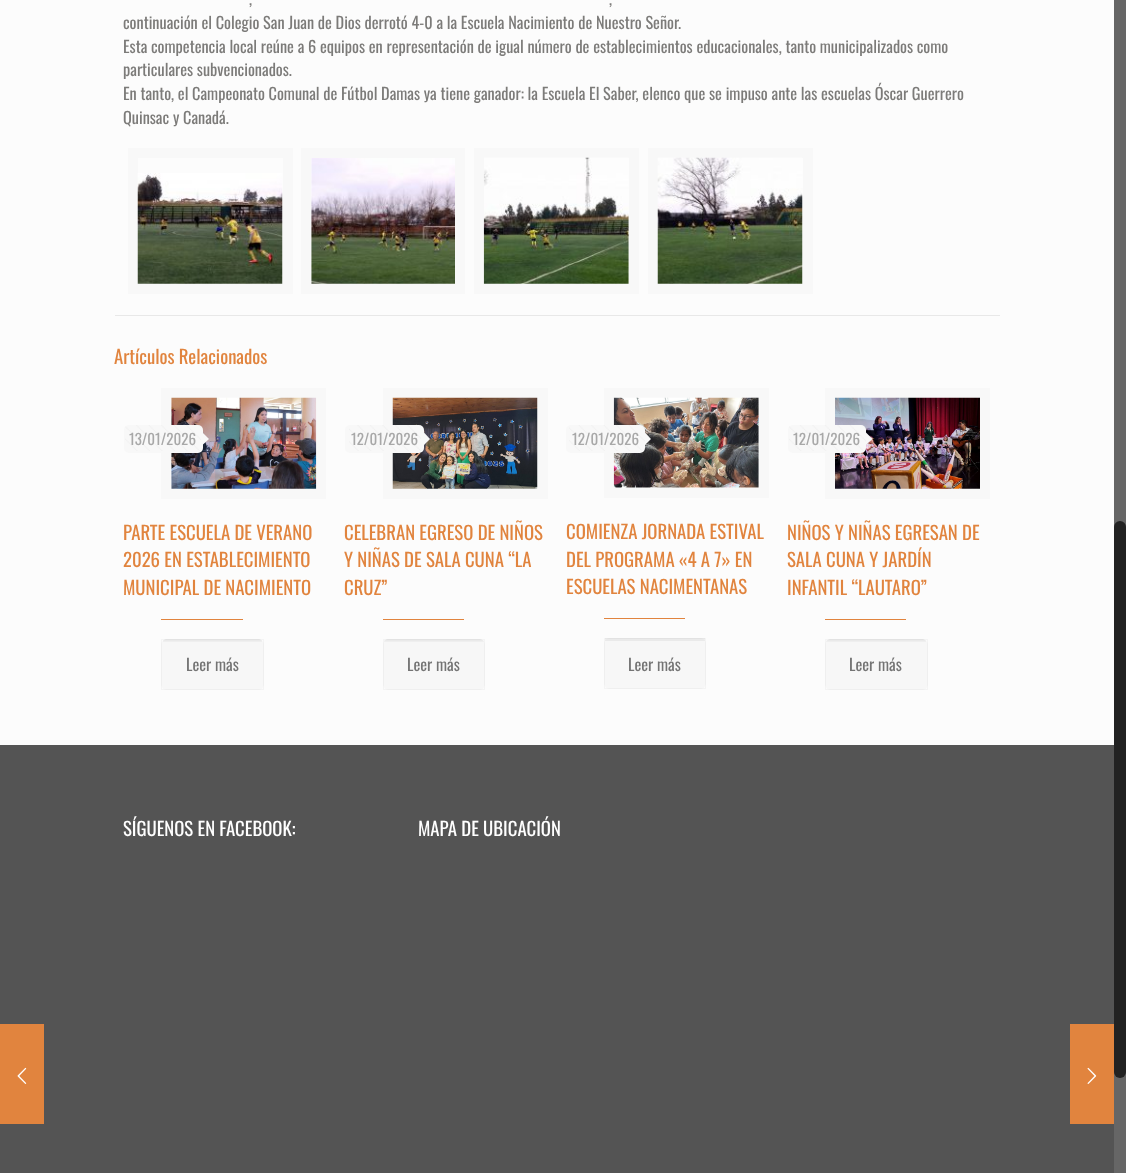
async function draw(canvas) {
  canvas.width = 1126;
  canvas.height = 1173;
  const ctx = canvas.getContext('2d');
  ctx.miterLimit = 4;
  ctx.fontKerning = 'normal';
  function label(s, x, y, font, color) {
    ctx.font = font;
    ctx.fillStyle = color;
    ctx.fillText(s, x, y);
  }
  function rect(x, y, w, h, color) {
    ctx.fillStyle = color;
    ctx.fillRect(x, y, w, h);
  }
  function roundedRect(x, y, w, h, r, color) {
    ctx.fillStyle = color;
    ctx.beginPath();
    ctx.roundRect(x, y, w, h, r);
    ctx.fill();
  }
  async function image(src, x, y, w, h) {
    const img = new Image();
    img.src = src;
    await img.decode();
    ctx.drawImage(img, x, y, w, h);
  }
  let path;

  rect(0, 0, 1126, 1173, '#fcfcfc');
  label(',', 249, 5, '16.25px Oswald', '#7c7b79');
  label(',', 609, 5, '16.25px Oswald', '#7c7b79');
  label('continuación el Colegio San Juan de Dios derrotó 4-0 a la Escuela Nacimiento de Nuestro Señor.', 123, 29, '16.25px Oswald', '#7c7b79');
  label('Esta competencia local reúne a 6 equipos en representación de igual número de establecimientos educacionales, tanto municipalizados como', 123, 53, '16.25px Oswald', '#7c7b79');
  label('particulares subvencionados.', 123, 76, '16.25px Oswald', '#7c7b79');
  label('En tanto, el Campeonato Comunal de Fútbol Damas ya tiene ganador: la Escuela El Saber, elenco que se impuso ante las escuelas Óscar Guerrero', 123, 100, '16.25px Oswald', '#7c7b79');
  label('Quinsac y Canadá.', 123, 124, '16.25px Oswald', '#7c7b79');
  ctx.strokeStyle = '#f8f8f8';
  ctx.lineWidth = 10;
  ctx.strokeRect(133, 153, 155, 136);
  await image('assets/img1.png', 137, 173, 146, 111);
  ctx.strokeRect(306, 153, 154, 136);
  await image('assets/img2.png', 311, 158, 144, 126);
  ctx.strokeRect(479, 153, 155, 136);
  await image('assets/img3.png', 483, 157, 146, 127);
  ctx.strokeRect(653, 153, 155, 136);
  await image('assets/img4.png', 657, 157, 146, 127);
  rect(115, 315, 885, 1, '#e8e8e8');
  label('Artículos Relacionados', 114, 364, '18.75px Oswald', '#e1843e');
  ctx.strokeRect(166, 393, 155, 101);
  await image('assets/img5.png', 171, 397, 146, 92);
  roundedRect(124, 425, 79, 28, 5, '#f8f8f8');
  await image('assets/img6.png', 125, 425, 76, 26);
  label('13/01/2026', 129, 445, '15px Oswald', '#a8a8a8');
  ctx.fillStyle = '#f8f8f8';
  path = new Path2D('M202.5 445V432.5L209 439Z');
  ctx.fill(path);
  label('PARTE ESCUELA DE VERANO', 123, 540, '18.75px Oswald', '#e1843e');
  label('2026 EN ESTABLECIMIENTO', 123, 567, '18.75px Oswald', '#e1843e');
  label('MUNICIPAL DE NACIMIENTO', 123, 595, '18.75px Oswald', '#e1843e');
  rect(161, 619, 82, 1, '#e1843e');
  roundedRect(161, 639, 103, 51, 6, '#f7f7f7');
  await image('assets/img7.png', 163, 639, 99, 3);
  ctx.strokeStyle = '#00000008';
  ctx.lineWidth = 1;
  ctx.strokeRect(161.5, 639.5, 102, 50);
  label('Leer más', 186, 671, '16.25px Oswald', '#747474');
  ctx.strokeStyle = '#f8f8f8';
  ctx.lineWidth = 10;
  ctx.strokeRect(388, 393, 155, 101);
  await image('assets/img8.png', 392, 397, 146, 92);
  roundedRect(345, 425, 79, 28, 5, '#f8f8f8');
  await image('assets/img9.png', 349, 425, 72, 26);
  label('12/01/2026', 351, 445, '15px Oswald', '#a8a8a8');
  ctx.fillStyle = '#f8f8f8';
  path = new Path2D('M424 445V432.5L430 439Z');
  ctx.fill(path);
  label('CELEBRAN EGRESO DE NIÑOS', 344, 540, '18.75px Oswald', '#e1843e');
  label('Y NIÑAS DE SALA CUNA “LA', 344, 567, '18.75px Oswald', '#e1843e');
  label('CRUZ”', 344, 595, '18.75px Oswald', '#e1843e');
  rect(383, 619, 81, 1, '#e1843e');
  roundedRect(383, 639, 102, 51, 6, '#f7f7f7');
  await image('assets/img10.png', 384, 639, 100, 3);
  ctx.strokeStyle = '#00000008';
  ctx.lineWidth = 1;
  ctx.strokeRect(383.5, 639.5, 101, 50);
  label('Leer más', 407, 671, '16.25px Oswald', '#747474');
  ctx.strokeStyle = '#f8f8f8';
  ctx.lineWidth = 10;
  ctx.strokeRect(609, 393, 155, 100);
  await image('assets/img11.png', 613, 397, 146, 91);
  roundedRect(566, 425, 79, 28, 5, '#f8f8f8');
  await image('assets/img12.png', 569, 425, 76, 26);
  label('12/01/2026', 572, 445, '15px Oswald', '#a8a8a8');
  ctx.fillStyle = '#f8f8f8';
  path = new Path2D('M645 445V432.5L651 439Z');
  ctx.fill(path);
  label('COMIENZA JORNADA ESTIVAL', 566, 539, '18.75px Oswald', '#e1843e');
  label('DEL PROGRAMA «4 A 7» EN', 566, 567, '18.75px Oswald', '#e1843e');
  label('ESCUELAS NACIMENTANAS', 566, 594, '18.75px Oswald', '#e1843e');
  rect(604, 618, 81, 1, '#e1843e');
  roundedRect(604, 638, 102, 51, 6, '#f7f7f7');
  rect(605, 638, 100, 3, '#0000000d');
  ctx.strokeStyle = '#00000008';
  ctx.lineWidth = 1;
  ctx.strokeRect(604.5, 638.5, 101, 50);
  label('Leer más', 628, 671, '16.25px Oswald', '#747474');
  ctx.strokeStyle = '#f8f8f8';
  ctx.lineWidth = 10;
  ctx.strokeRect(830, 393, 155, 101);
  await image('assets/img13.png', 835, 397, 145, 92);
  roundedRect(788, 425, 78, 28, 5, '#f8f8f8');
  await image('assets/img14.png', 789, 425, 77, 26);
  label('12/01/2026', 793, 445, '15px Oswald', '#a8a8a8');
  ctx.fillStyle = '#f8f8f8';
  path = new Path2D('M866 445V432.5L872.5 439Z');
  ctx.fill(path);
  label('NIÑOS Y NIÑAS EGRESAN DE', 787, 540, '18.75px Oswald', '#e1843e');
  label('SALA CUNA Y JARDÍN', 787, 567, '18.75px Oswald', '#e1843e');
  label('INFANTIL “LAUTARO”', 787, 595, '18.75px Oswald', '#e1843e');
  rect(825, 619, 81, 1, '#e1843e');
  roundedRect(825, 639, 103, 51, 6, '#f7f7f7');
  await image('assets/img15.png', 826, 639, 100, 3);
  ctx.strokeStyle = '#00000008';
  ctx.lineWidth = 1;
  ctx.strokeRect(825.5, 639.5, 102, 50);
  label('Leer más', 849, 671, '16.25px Oswald', '#747474');
  rect(0, 745, 1114, 428, '#545454');
  label('SÍGUENOS EN FACEBOOK:', 123, 836, '18.75px Oswald', '#fff');
  label('MAPA DE UBICACIÓN', 418, 836, '18.75px Oswald', '#fff');
  rect(1114, 0, 12, 1173, '#666');
  roundedRect(1114, 521, 12, 557, 6, '#222');
  rect(0, 1024, 44, 100, '#e1843e');
  await image('assets/img16.png', 17, 1067, 10, 17);
  rect(1070, 1024, 44, 100, '#e1843e');
  await image('assets/img17.png', 1087, 1067, 10, 17);
}

draw(document.querySelector('canvas'));
